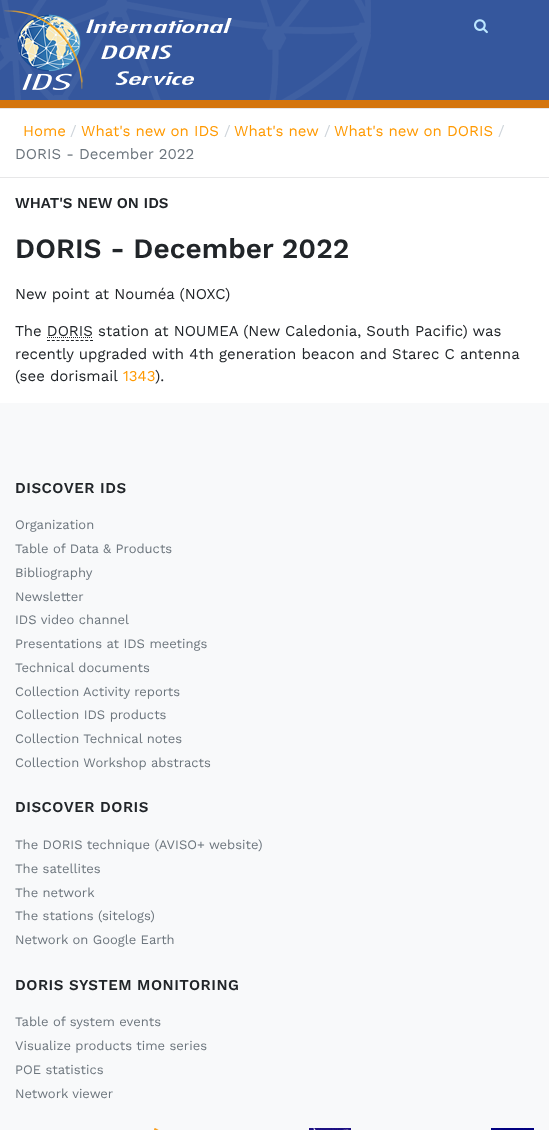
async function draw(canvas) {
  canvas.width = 549;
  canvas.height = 1130;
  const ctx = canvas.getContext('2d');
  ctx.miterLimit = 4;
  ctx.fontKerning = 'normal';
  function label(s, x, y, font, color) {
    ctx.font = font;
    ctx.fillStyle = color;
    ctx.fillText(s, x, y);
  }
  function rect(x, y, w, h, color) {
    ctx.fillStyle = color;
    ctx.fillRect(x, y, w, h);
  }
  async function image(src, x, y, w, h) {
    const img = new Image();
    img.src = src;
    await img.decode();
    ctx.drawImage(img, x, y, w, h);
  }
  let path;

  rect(0, 0, 549, 1130, '#fff');
  rect(371, 0, 178, 100, '#35579d');
  rect(0, 100, 549, 8, '#d4750e');
  await image('assets/img1.png', 0, 0, 371, 100);
  await image('assets/img2.png', 4, 10, 228, 80);
  await image('assets/img3.png', 474, 19, 14, 15);
  rect(0, 108, 549, 1, '#e7e7e8');
  rect(0, 177, 549, 1, '#e7e7e8');
  label('Home', 23, 136, '15px Work Sans', '#f90');
  label('/', 70, 136, '15px Work Sans', '#ced4da');
  label('What\'s new on IDS', 81, 136, '15px Work Sans', '#f90');
  label('/', 224, 136, '15px Work Sans', '#ced4da');
  label('What\'s new', 234, 136, '15px Work Sans', '#f90');
  label('/', 324, 136, '15px Work Sans', '#ced4da');
  label('What\'s new on DORIS', 334, 136, '15px Work Sans', '#f90');
  label('/', 498, 136, '15px Work Sans', '#ced4da');
  label('DORIS - December 2022', 15, 159, '15px Work Sans', '#6c757d');
  label('WHAT\'S NEW ON IDS', 15, 208, '600 15px Work Sans', '#212529');
  label('DORIS - December 2022', 15, 258, '600 28px Work Sans', '#212529');
  label('New point at Nouméa (NOXC)', 15, 299, '15px Work Sans', '#212529');
  label('The DORIS station at NOUMEA (New Caledonia, South Pacific) was', 15, 336, '15px Work Sans', '#212529');
  path = new Path2D('M47 337.5H93');
  ctx.strokeStyle = '#212529';
  ctx.setLineDash([1, 1]);
  ctx.stroke(path);
  path = new Path2D('M47 340.5H93');
  ctx.setLineDash([3, 1.78]);
  ctx.stroke(path);
  label('recently upgraded with 4th generation beacon and Starec C antenna', 15, 359, '15px Work Sans', '#212529');
  label('(see dorismail', 15, 381, '15px Work Sans', '#212529');
  label('1343', 123, 381, '15px Work Sans', '#f90');
  label(').', 155, 381, '15px Work Sans', '#212529');
  rect(0, 403, 549, 727, '#f8f9fa');
  ctx.letterSpacing = '0.5px';
  label('DISCOVER IDS', 15, 493, '600 15px Work Sans', '#212529');
  ctx.letterSpacing = '0px';
  label('Organization', 15, 529, '13px Work Sans', '#6c757d');
  label('Table of Data & Products', 15, 553, '13px Work Sans', '#6c757d');
  label('Bibliography', 15, 577, '13px Work Sans', '#6c757d');
  label('Newsletter', 15, 601, '13px Work Sans', '#6c757d');
  label('IDS video channel', 15, 624, '13px Work Sans', '#6c757d');
  label('Presentations at IDS meetings', 15, 648, '13px Work Sans', '#6c757d');
  label('Technical documents', 15, 672, '13px Work Sans', '#6c757d');
  label('Collection Activity reports', 15, 696, '13px Work Sans', '#6c757d');
  label('Collection IDS products', 15, 719, '13px Work Sans', '#6c757d');
  label('Collection Technical notes', 15, 743, '13px Work Sans', '#6c757d');
  label('Collection Workshop abstracts', 15, 767, '13px Work Sans', '#6c757d');
  ctx.letterSpacing = '0.5px';
  label('DISCOVER DORIS', 15, 812, '600 15px Work Sans', '#212529');
  ctx.letterSpacing = '0px';
  label('The DORIS technique (AVISO+ website)', 15, 849, '13px Work Sans', '#6c757d');
  label('The satellites', 15, 873, '13px Work Sans', '#6c757d');
  label('The network', 15, 897, '13px Work Sans', '#6c757d');
  label('The stations (sitelogs)', 15, 920, '13px Work Sans', '#6c757d');
  label('Network on Google Earth', 15, 944, '13px Work Sans', '#6c757d');
  ctx.letterSpacing = '0.5px';
  label('DORIS SYSTEM MONITORING', 15, 990, '600 15px Work Sans', '#212529');
  ctx.letterSpacing = '0px';
  label('Table of system events', 15, 1026, '13px Work Sans', '#6c757d');
  label('Visualize products time series', 15, 1050, '13px Work Sans', '#6c757d');
  label('POE statistics', 15, 1074, '13px Work Sans', '#6c757d');
  label('Network viewer', 15, 1098, '13px Work Sans', '#6c757d');
  await image('assets/img4.png', 154, 1128, 5, 2);
  await image('assets/img5.png', 309, 1128, 42, 2);
  await image('assets/img6.png', 491, 1128, 43, 2);
}

draw(document.querySelector('canvas'));
